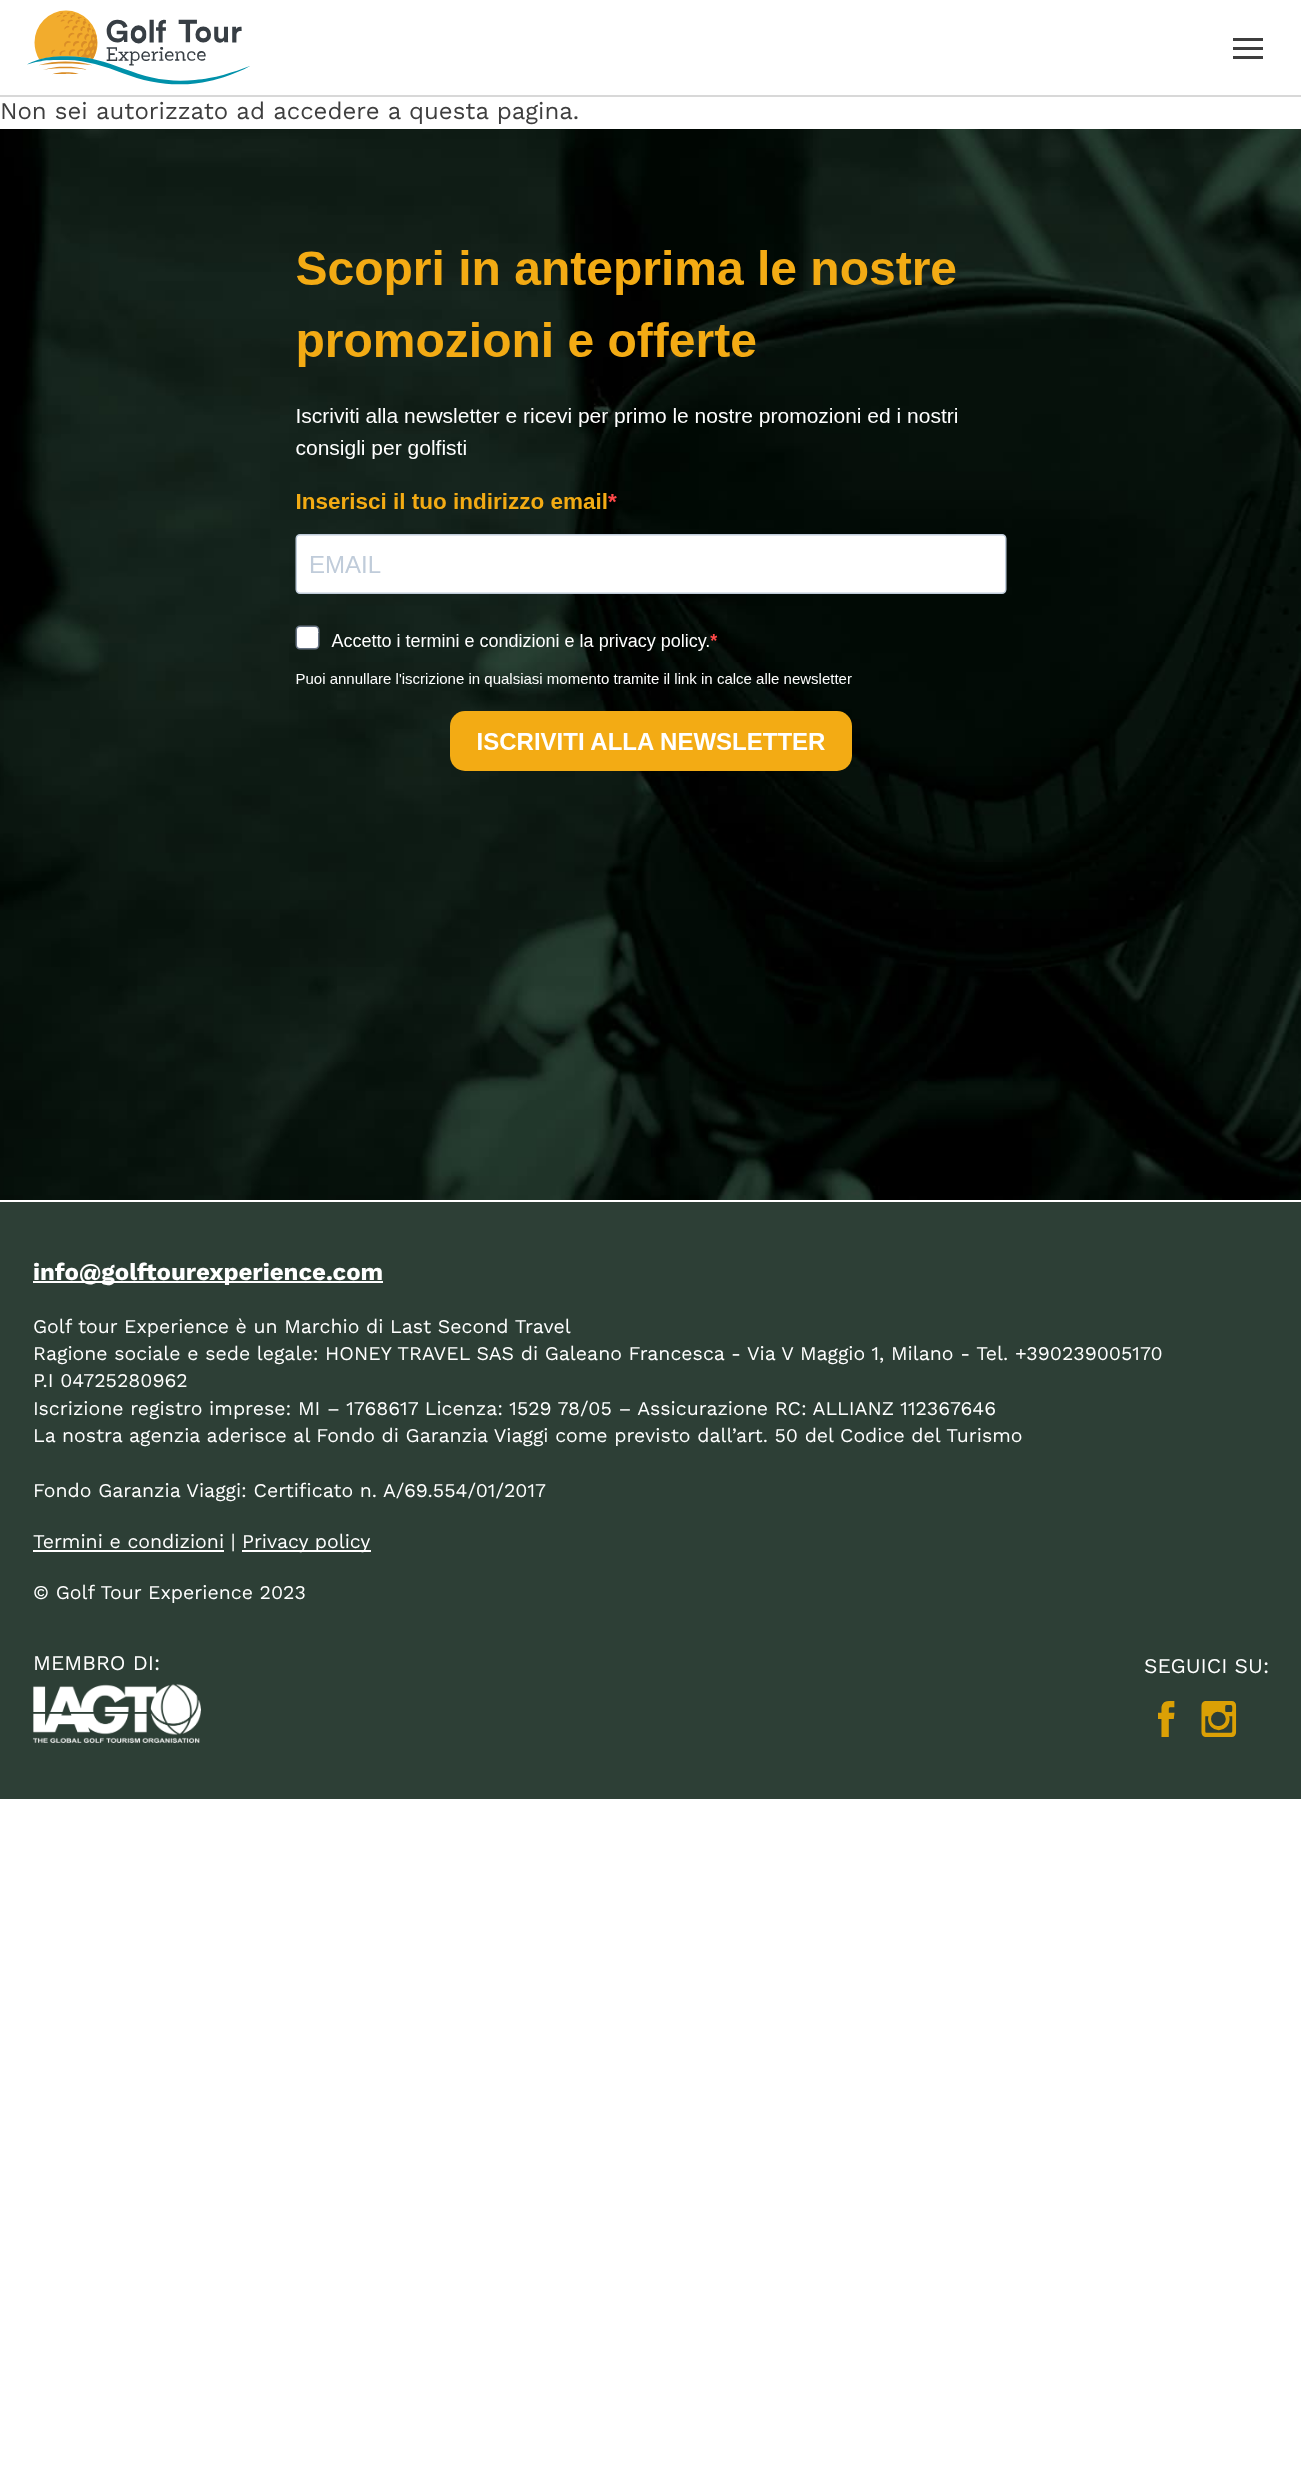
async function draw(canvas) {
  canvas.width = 1301;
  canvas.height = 2465;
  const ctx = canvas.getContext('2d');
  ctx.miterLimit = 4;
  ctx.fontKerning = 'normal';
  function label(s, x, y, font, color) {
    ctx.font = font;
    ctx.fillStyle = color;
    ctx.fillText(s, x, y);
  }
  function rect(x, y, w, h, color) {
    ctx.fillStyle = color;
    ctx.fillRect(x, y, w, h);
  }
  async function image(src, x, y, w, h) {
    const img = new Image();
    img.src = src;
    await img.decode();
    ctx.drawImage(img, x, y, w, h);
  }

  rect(0, 0, 1301, 2465, '#fff');
  rect(0, 95, 1301, 2, '#d8d8d8');
  await image('assets/img1.png', 27, 10, 223, 75);
  rect(1233, 47, 30, 3, '#3e3e3e');
  rect(1233, 38, 30, 3, '#3e3e3e');
  rect(1233, 56, 30, 3, '#3e3e3e');
  label('Non sei autorizzato ad accedere a questa pagina.', 0, 119, '24px Work Sans', '#3e3e3e');
  await image('assets/img2.png', 0, 129, 1301, 1071);
  await image('assets/img3.png', 295, 250, 712, 521);
  rect(0, 1202, 1301, 597, '#2d3f36');
  rect(33, 1281, 350, 2, '#fff');
  label('info@golftourexperience.com', 33, 1280, 'bold 24px Work Sans', '#fff');
  label('Golf tour Experience è un Marchio di Last Second Travel', 33, 1333, '19.5px Work Sans', '#fff');
  label('Ragione sociale e sede legale: HONEY TRAVEL SAS di Galeano Francesca - Via V Maggio 1, Milano - Tel. +390239005170', 33, 1360, '19.5px Work Sans', '#fff');
  label('P.I 04725280962', 33, 1387, '19.5px Work Sans', '#fff');
  label('Iscrizione registro imprese: MI – 1768617 Licenza: 1529 78/05 – Assicurazione RC: ALLIANZ 112367646', 33, 1415, '19.5px Work Sans', '#fff');
  label('La nostra agenzia aderisce al Fondo di Garanzia Viaggi come previsto dall’art. 50 del Codice del Turismo', 33, 1442, '19.5px Work Sans', '#fff');
  label('Fondo Garanzia Viaggi: Certificato n. A/69.554/01/2017', 33, 1497, '19.5px Work Sans', '#fff');
  rect(33, 1550, 191, 2, '#fff');
  label('Termini e condizioni |', 33, 1548, '19.5px Work Sans', '#fff');
  rect(242, 1550, 129, 2, '#fff');
  label('Privacy policy', 242, 1548, '19.5px Work Sans', '#fff');
  label('© Golf Tour Experience 2023', 33, 1599, '19.5px Work Sans', '#fff');
  label('MEMBRO DI:', 33, 1670, '21px Work Sans', '#fff');
  await image('assets/img4.png', 33, 1684, 168, 59);
  label('SEGUICI SU:', 1144, 1673, '21px Work Sans', '#fff');
  await image('assets/img5.png', 1158, 1701, 17, 36);
  await image('assets/img6.png', 1201, 1701, 36, 36);
}

draw(document.querySelector('canvas'));
